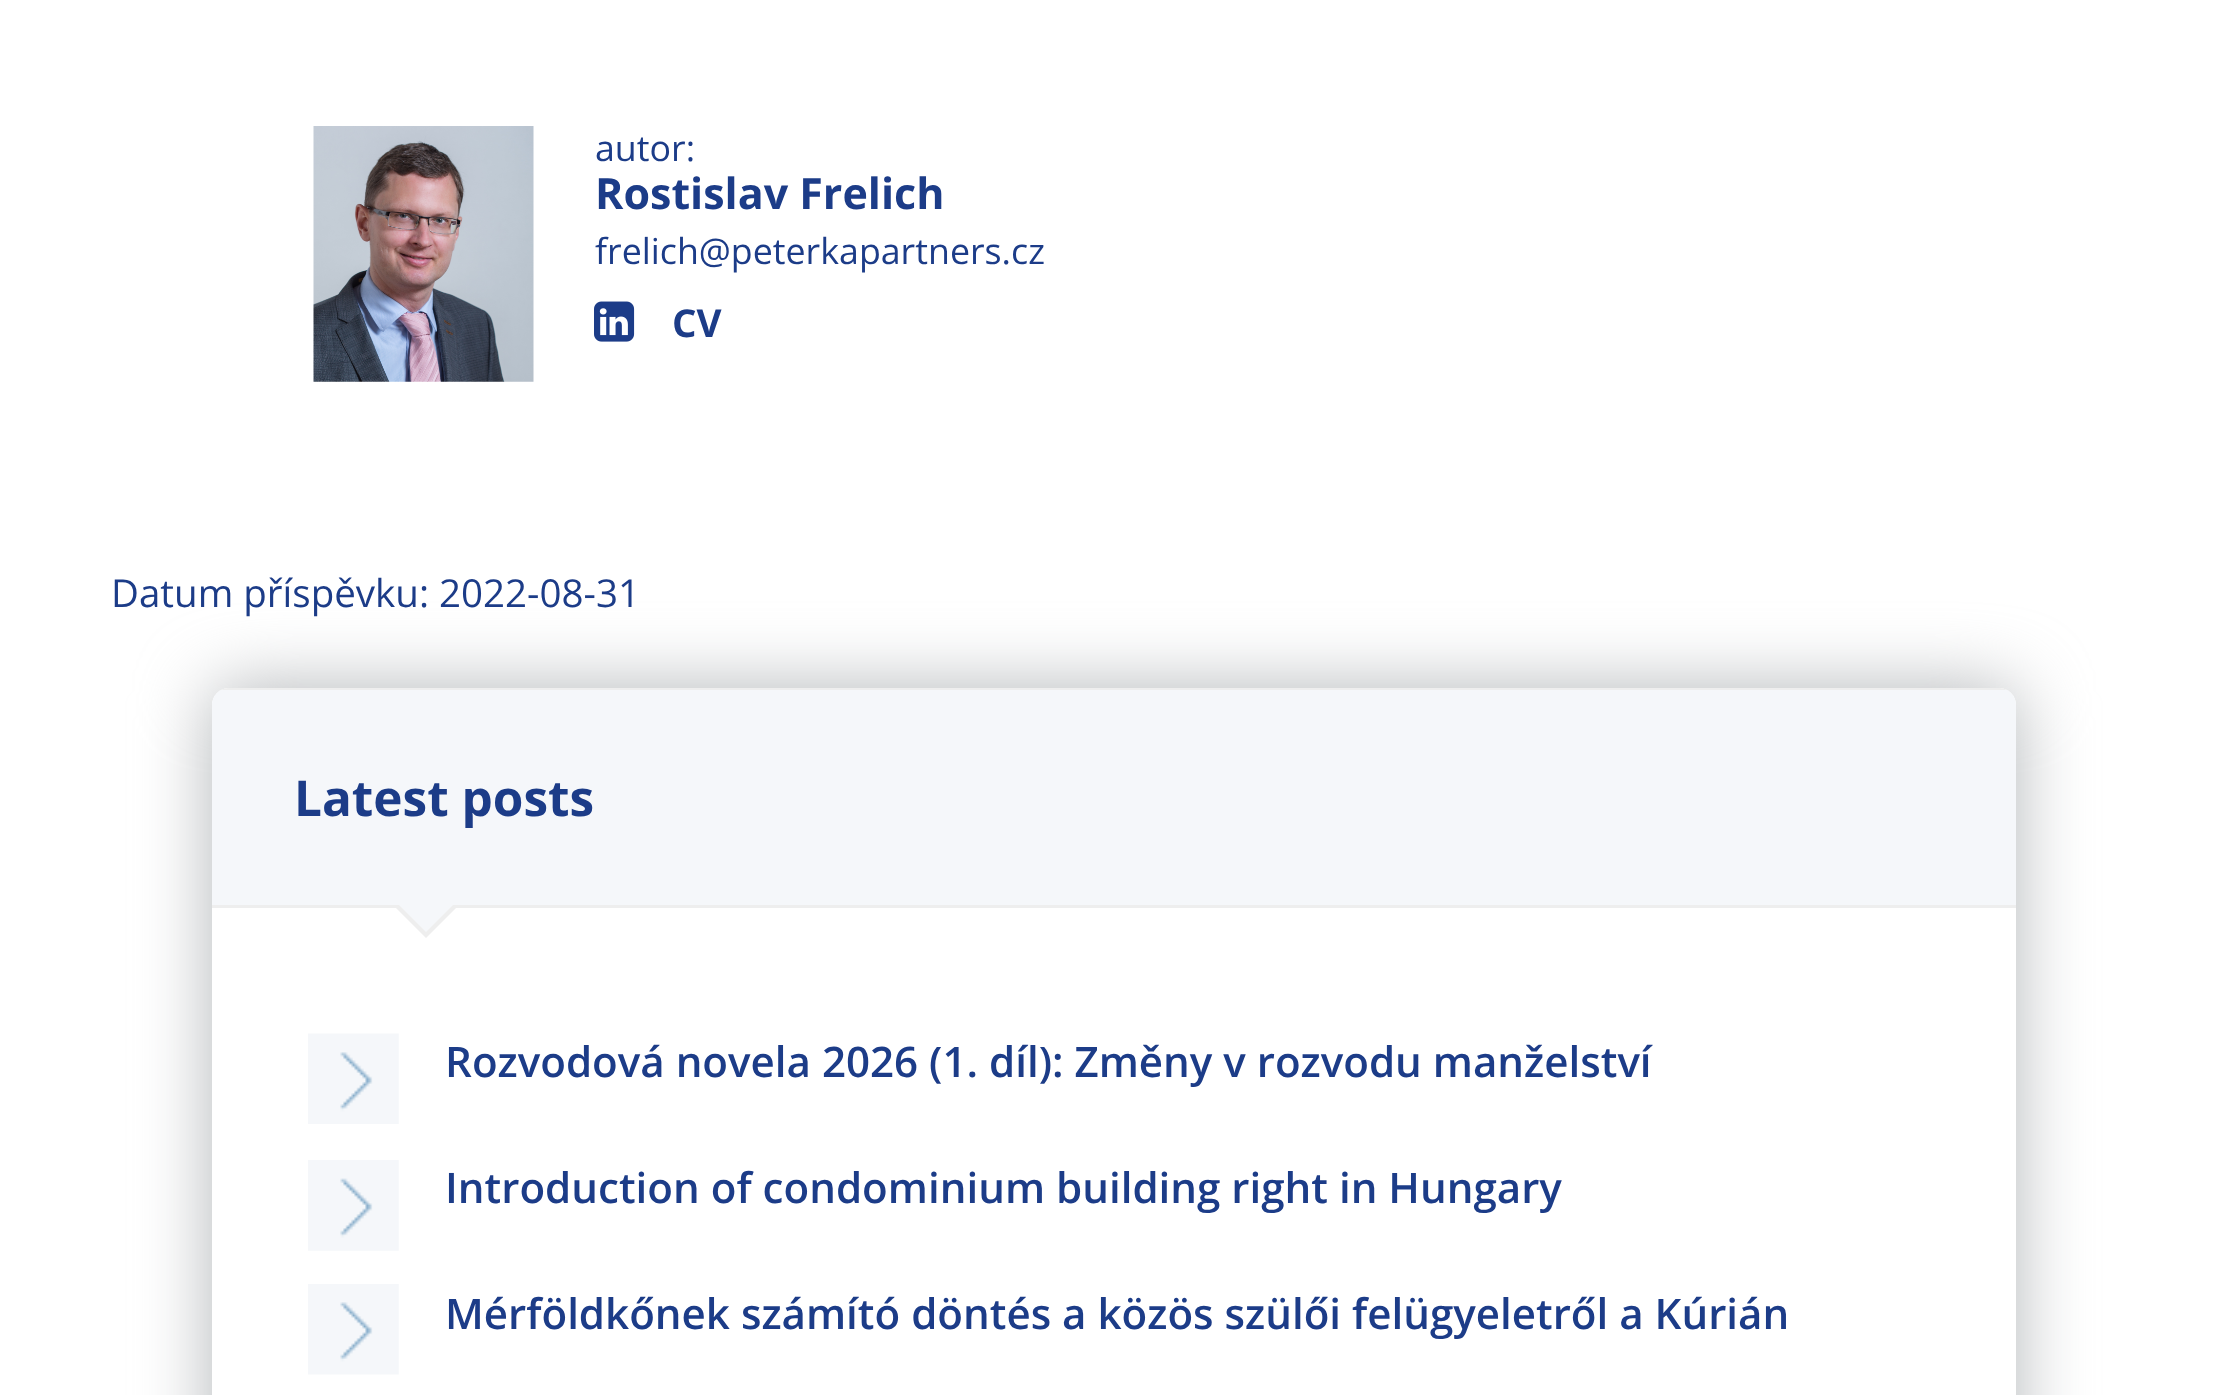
async function draw(canvas) {
  canvas.width = 2225;
  canvas.height = 1395;
  const ctx = canvas.getContext('2d');
  ctx.miterLimit = 4;
  ctx.fontKerning = 'normal';
  function label(s, x, y, font, color) {
    ctx.font = font;
    ctx.fillStyle = color;
    ctx.fillText(s, x, y);
  }
  function rect(x, y, w, h, color) {
    ctx.fillStyle = color;
    ctx.fillRect(x, y, w, h);
  }
  function roundedRect(x, y, w, h, r, color) {
    ctx.fillStyle = color;
    ctx.beginPath();
    ctx.roundRect(x, y, w, h, r);
    ctx.fill();
  }
  async function image(src, x, y, w, h) {
    const img = new Image();
    img.src = src;
    await img.decode();
    ctx.drawImage(img, x, y, w, h);
  }
  let path;

  rect(0, 0, 2225, 1395, '#fff');
  await image('assets/img1.png', 313, 126, 221, 256);
  label('autor:', 595, 161, '35.75px Open Sans', '#1c3c88');
  label('Rostislav Frelich', 595, 209, 'bold 43px Open Sans', '#1c3c88');
  label('frelich@peterkapartners.cz', 595, 264, '35.75px Open Sans', '#1c3c88');
  await image('assets/img2.png', 594, 301, 41, 41);
  label('CV', 672, 337, 'bold 38.5px Open Sans', '#1c3c88');
  ctx.fillStyle = '#b2b5b8';
  ctx.filter = 'blur(36px)';
  ctx.beginPath();
  ctx.roundRect(212, 688, 1804, 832, 17);
  ctx.fill();
  ctx.filter = 'none';
  label('Datum příspěvku: 2022-08-31', 111, 607, '38.5px Open Sans', '#1c3c88');
  roundedRect(212, 688, 1804, 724, 17, '#fff');
  ctx.save();
  ctx.beginPath();
  ctx.roundRect(212, 688, 1804, 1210, 17);
  ctx.clip();
  rect(212, 688, 1804, 3, '#eee');
  rect(212, 690, 1804, 215, '#f5f7fa');
  ctx.restore();
  rect(212, 905, 1804, 3, '#eee');
  label('Latest posts', 294, 816, 'bold 49.5px Open Sans', '#1c3c88');
  ctx.fillStyle = '#eee';
  path = new Path2D('M393 905H459L426 938Z');
  ctx.fill(path);
  ctx.fillStyle = '#f5f7fa';
  path = new Path2D('M396 902H456L426 932Z');
  ctx.fill(path);
  await image('assets/img3.png', 308, 1033, 91, 91);
  label('Rozvodová novela 2026 (1. díl): Změny v rozvodu manželství', 445, 1077, '600 42.1px Open Sans', '#1c3c88');
  await image('assets/img4.png', 308, 1160, 91, 91);
  label('Introduction of condominium building right in Hungary', 445, 1203, '600 42.1px Open Sans', '#1c3c88');
  await image('assets/img5.png', 308, 1284, 91, 91);
  label('Mérföldkőnek számító döntés a közös szülői felügyeletről a Kúrián', 445, 1329, '600 42.1px Open Sans', '#1c3c88');
}

draw(document.querySelector('canvas'));
